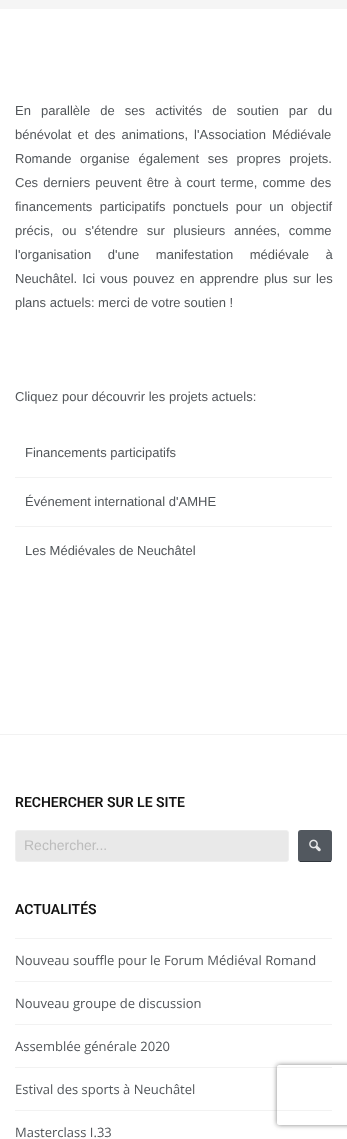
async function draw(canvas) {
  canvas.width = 347;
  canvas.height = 1139;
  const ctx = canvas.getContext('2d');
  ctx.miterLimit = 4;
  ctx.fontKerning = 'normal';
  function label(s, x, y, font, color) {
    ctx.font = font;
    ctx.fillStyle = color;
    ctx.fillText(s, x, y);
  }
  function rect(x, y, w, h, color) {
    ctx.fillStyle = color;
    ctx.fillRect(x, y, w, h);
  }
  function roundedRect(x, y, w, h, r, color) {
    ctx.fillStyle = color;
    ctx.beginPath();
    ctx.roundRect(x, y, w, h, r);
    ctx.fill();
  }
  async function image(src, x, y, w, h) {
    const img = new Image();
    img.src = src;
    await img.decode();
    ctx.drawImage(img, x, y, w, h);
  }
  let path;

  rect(0, 0, 347, 1139, '#f5f5f5');
  rect(0, 9, 347, 725, '#fff');
  ctx.wordSpacing = '6.5px';
  label('En parallèle de ses activités de soutien par du', 15, 115, '13px Liberation Sans', '#52565a');
  ctx.wordSpacing = '2.5px';
  label('bénévolat et des animations, l\'Association Médiévale', 15, 139, '13px Liberation Sans', '#52565a');
  ctx.wordSpacing = '5px';
  label('Romande organise également ses propres projets.', 15, 163, '13px Liberation Sans', '#52565a');
  ctx.wordSpacing = '1.5px';
  label('Ces derniers peuvent être à court terme, comme des', 15, 187, '13px Liberation Sans', '#52565a');
  ctx.wordSpacing = '3.75px';
  label('financements participatifs ponctuels pour un objectif', 15, 211, '13px Liberation Sans', '#52565a');
  ctx.wordSpacing = '5px';
  label('précis, ou s\'étendre sur plusieurs années, comme', 15, 235, '13px Liberation Sans', '#52565a');
  ctx.wordSpacing = '13px';
  label('l\'organisation d\'une manifestation médiévale à', 15, 259, '13px Liberation Sans', '#52565a');
  ctx.wordSpacing = '1.5px';
  label('Neuchâtel. Ici vous pouvez en apprendre plus sur les', 15, 283, '13px Liberation Sans', '#52565a');
  ctx.wordSpacing = '0px';
  label('plans actuels: merci de votre soutien !', 15, 307, '13px Liberation Sans', '#52565a');
  label('Cliquez pour découvrir les projets actuels:', 15, 401, '13px Liberation Sans', '#52565a');
  label('Financements participatifs', 25, 457, '13px Liberation Sans', '#52565a');
  rect(15, 477, 317, 1, '#f2f2f2');
  label('Événement international d\'AMHE', 25, 506, '13px Liberation Sans', '#52565a');
  rect(15, 526, 317, 1, '#f2f2f2');
  label('Les Médiévales de Neuchâtel', 25, 555, '13px Liberation Sans', '#52565a');
  rect(0, 735, 347, 404, '#fff');
  rect(0, 734, 347, 1, '#f2f2f2');
  label('RECHERCHER SUR LE SITE', 15, 807, '600 14px Roboto', '#121212');
  ctx.fillStyle = '#e9e9e9';
  ctx.beginPath();
  ctx.roundRect(15.5, 830.5, 273, 31, 2.5);
  ctx.fill();
  ctx.strokeStyle = '#efefef';
  ctx.stroke();
  label('Rechercher...', 24, 850, '14px Liberation Sans', '#bcbcbc');
  roundedRect(298, 830, 34, 32, 3, '#52585f');
  rect(300, 861, 31, 1, '#30363d');
  await image('assets/img1.png', 309, 839, 12, 13);
  label('ACTUALITÉS', 15, 914, '600 14px Roboto', '#121212');
  rect(15, 938, 317, 1, '#f2f2f2');
  label('Nouveau souffle pour le Forum Médiéval Romand', 15, 965, '13px Open Sans', '#52565a');
  rect(15, 981, 317, 1, '#f2f2f2');
  label('Nouveau groupe de discussion', 15, 1008, '13px Open Sans', '#52565a');
  rect(15, 1024, 317, 1, '#f2f2f2');
  label('Assemblée générale 2020', 15, 1051, '13px Open Sans', '#52565a');
  rect(15, 1067, 317, 1, '#f2f2f2');
  label('Estival des sports à Neuchâtel', 15, 1094, '13px Open Sans', '#52565a');
  rect(15, 1110, 317, 1, '#f2f2f2');
  label('Masterclass I.33', 15, 1137, '13px Open Sans', '#52565a');
  ctx.save();
  path = new Path2D('M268 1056H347V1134H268ZM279 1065H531C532 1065 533 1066 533 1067V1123C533 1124 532 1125 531 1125H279C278 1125 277 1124 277 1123V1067C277 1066 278 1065 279 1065Z');
  ctx.clip(path, 'evenodd');
  ctx.fillStyle = '#808080';
  ctx.filter = 'blur(2.5px)';
  ctx.beginPath();
  ctx.roundRect(277, 1065, 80, 60, 2);
  ctx.fill();
  ctx.filter = 'none';
  ctx.restore();
}

draw(document.querySelector('canvas'));
